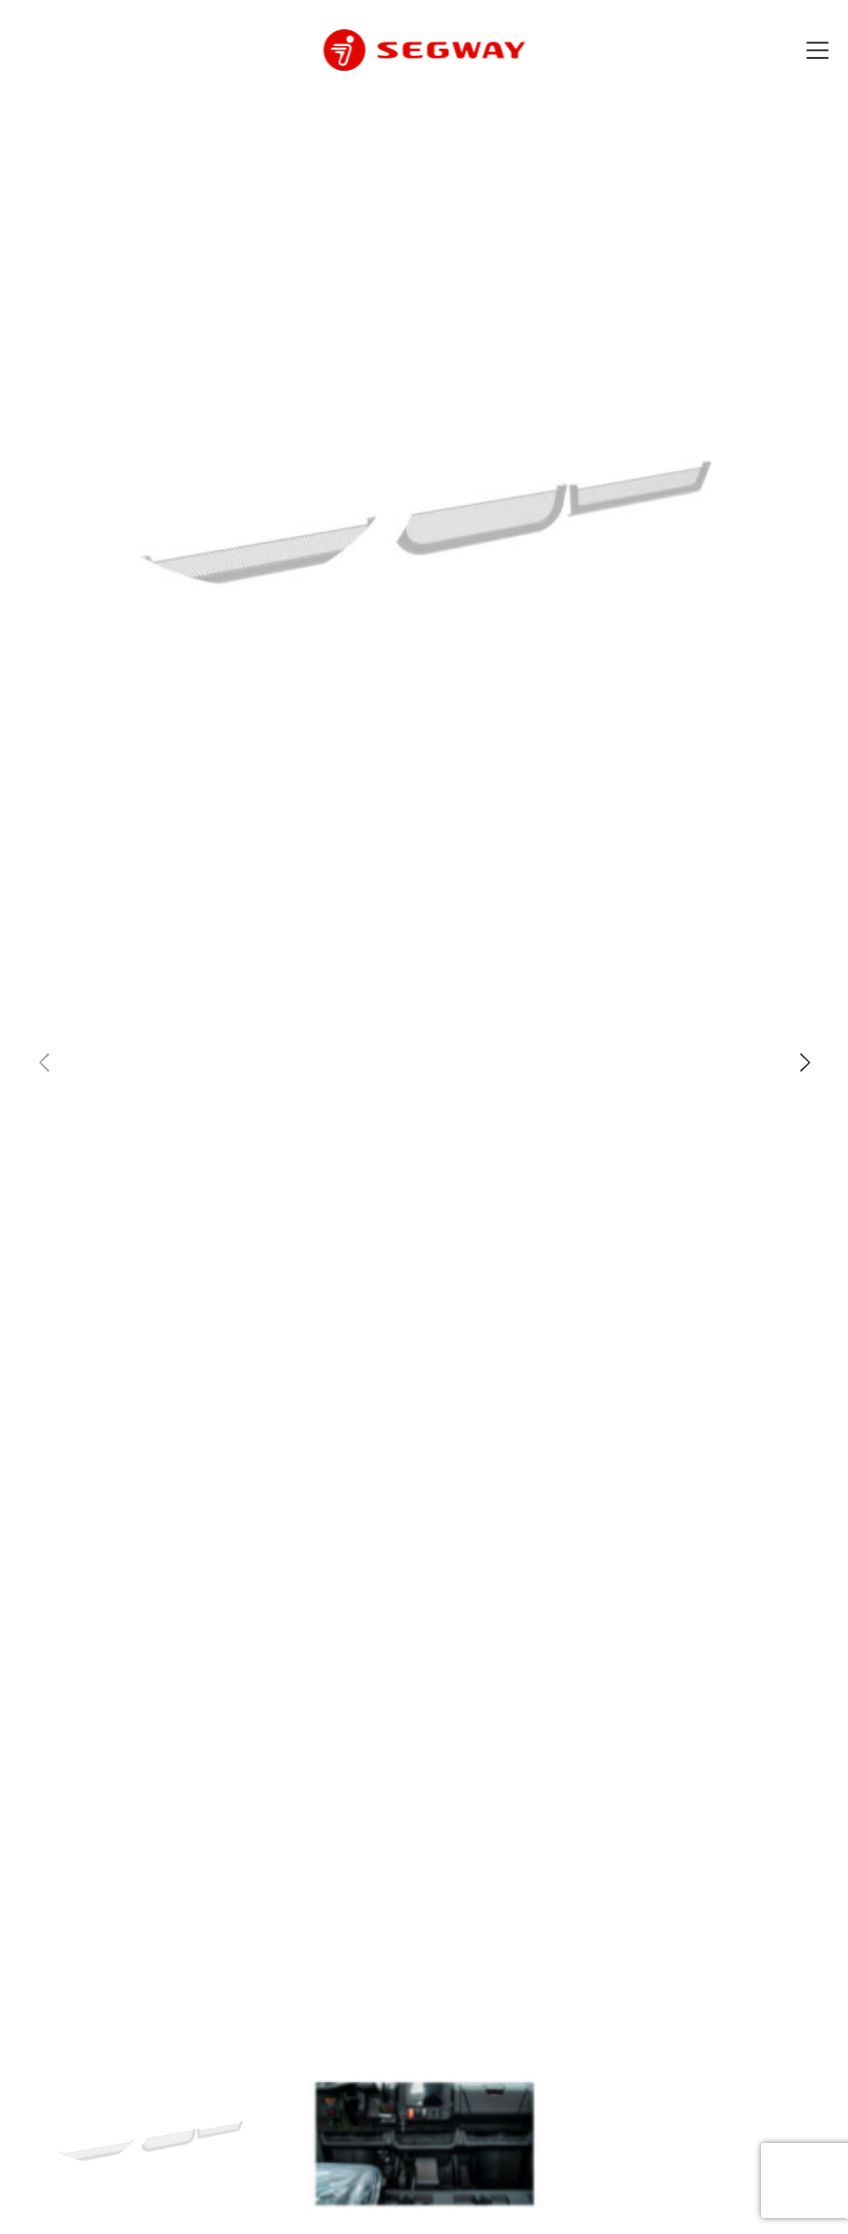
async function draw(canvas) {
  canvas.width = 848;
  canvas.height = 2234;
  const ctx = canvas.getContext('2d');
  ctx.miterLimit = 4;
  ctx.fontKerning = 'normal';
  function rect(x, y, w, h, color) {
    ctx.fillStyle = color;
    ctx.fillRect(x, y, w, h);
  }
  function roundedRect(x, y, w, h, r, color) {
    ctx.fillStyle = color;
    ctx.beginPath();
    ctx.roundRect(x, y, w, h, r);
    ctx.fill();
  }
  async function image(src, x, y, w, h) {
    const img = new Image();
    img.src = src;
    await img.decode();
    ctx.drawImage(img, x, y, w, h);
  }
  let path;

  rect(0, 0, 848, 2234, '#fff');
  await image('assets/img1.png', 322, 29, 204, 42);
  await image('assets/img2.png', 806, 41, 23, 18);
  await image('assets/img3.png', 140, 460, 572, 126);
  ctx.fillStyle = '#a5a5a5';
  path = new Path2D('M49.5 1054.5L48 1053L39 1062.5L48 1072L49.5 1070.5L41 1062.5Z');
  ctx.fill(path);
  ctx.fillStyle = '#333';
  path = new Path2D('M800 1054.5L808.5 1062.5L800 1070.5L801 1072L810.5 1062.5L801 1053Z');
  ctx.fill(path);
  await image('assets/img4.png', 59, 2121, 184, 40);
  await image('assets/img5.png', 308, 2079, 235, 130);
  ctx.save();
  path = new Path2D('M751 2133H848V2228H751ZM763.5 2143H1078.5C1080 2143 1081 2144 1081 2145.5V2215.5C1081 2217 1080 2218 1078.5 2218H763.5C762 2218 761 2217 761 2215.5V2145.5C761 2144 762 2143 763.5 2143Z');
  ctx.clip(path, 'evenodd');
  ctx.fillStyle = '#808080';
  ctx.filter = 'blur(3px)';
  ctx.beginPath();
  ctx.roundRect(761, 2143, 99, 75, 2.5);
  ctx.fill();
  ctx.filter = 'none';
  ctx.restore();
  roundedRect(834, 2170, 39, 50, 25, '#fff');
}

draw(document.querySelector('canvas'));
